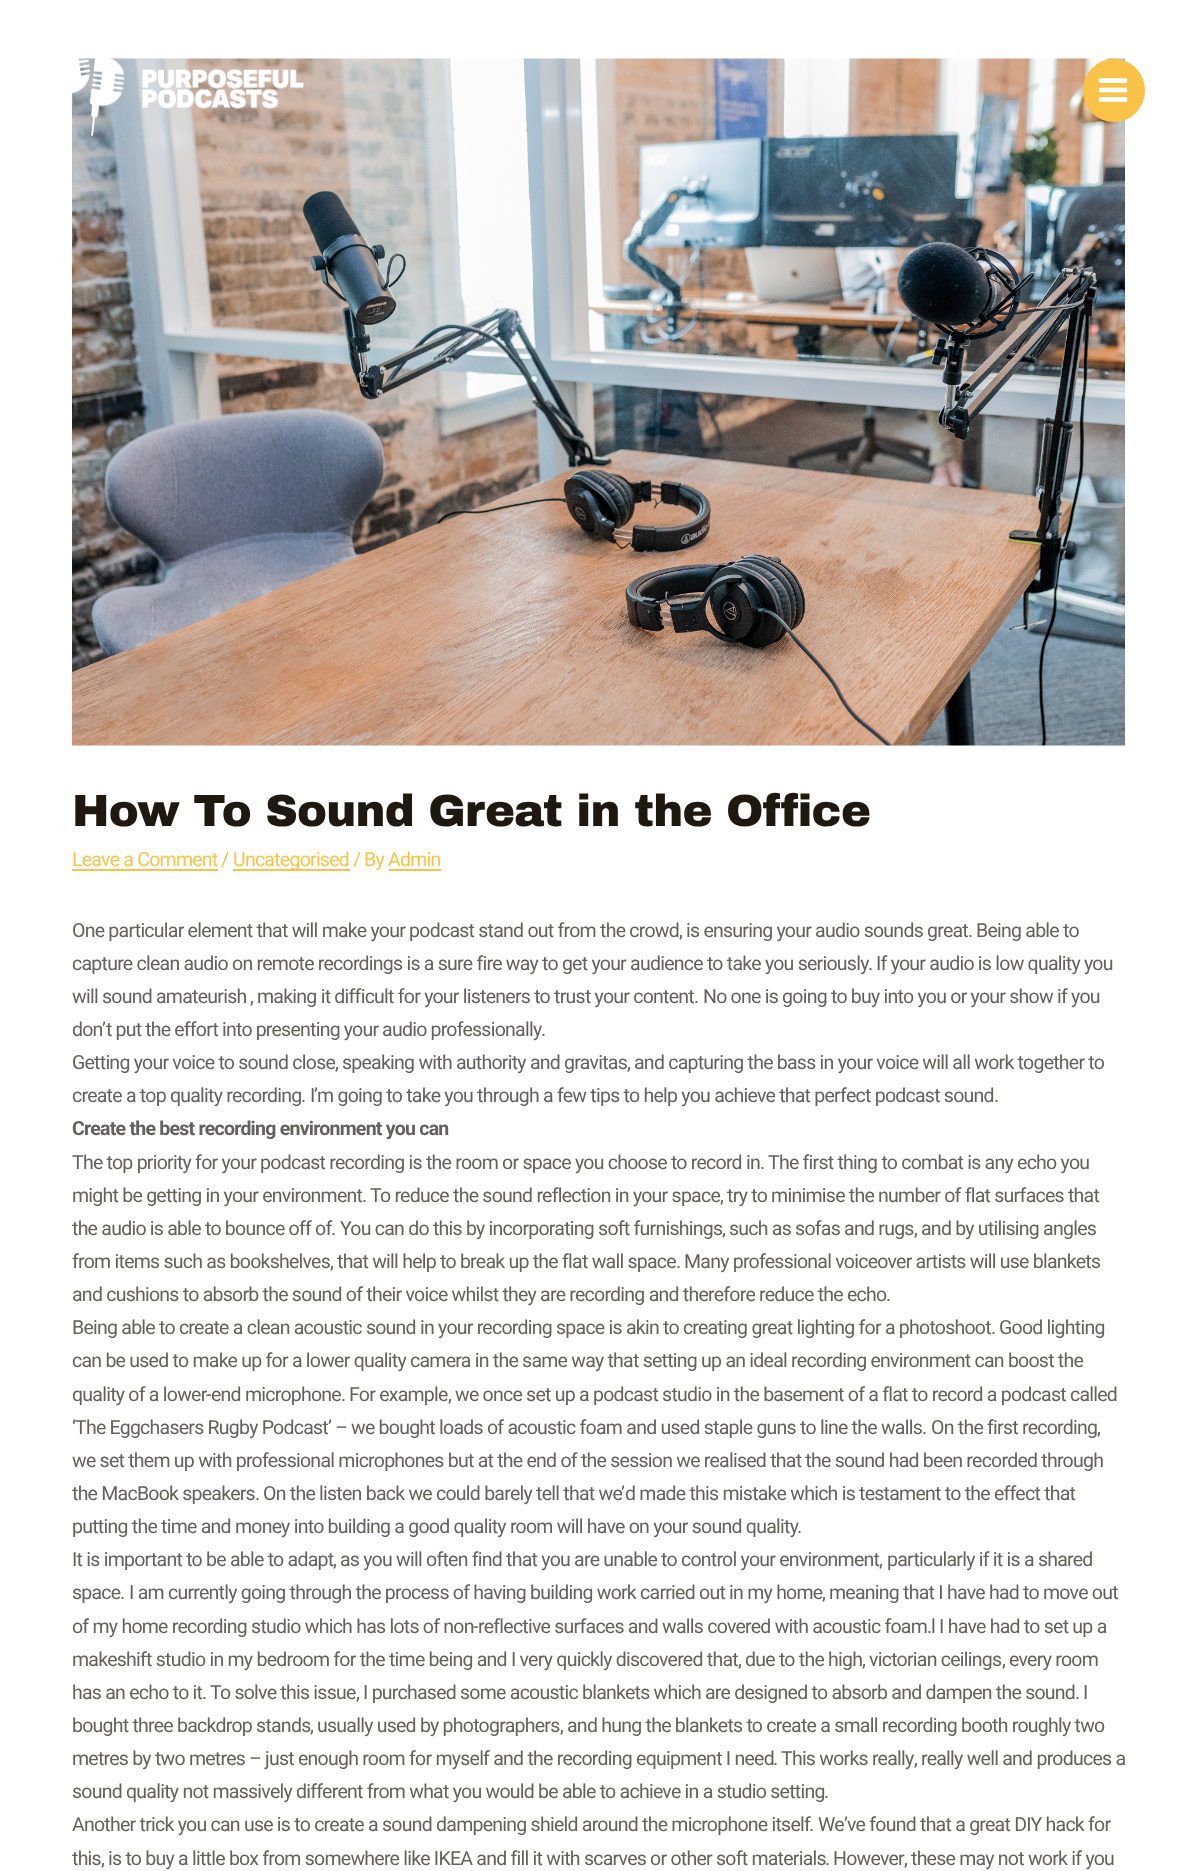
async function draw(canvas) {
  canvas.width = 1197;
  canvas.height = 1871;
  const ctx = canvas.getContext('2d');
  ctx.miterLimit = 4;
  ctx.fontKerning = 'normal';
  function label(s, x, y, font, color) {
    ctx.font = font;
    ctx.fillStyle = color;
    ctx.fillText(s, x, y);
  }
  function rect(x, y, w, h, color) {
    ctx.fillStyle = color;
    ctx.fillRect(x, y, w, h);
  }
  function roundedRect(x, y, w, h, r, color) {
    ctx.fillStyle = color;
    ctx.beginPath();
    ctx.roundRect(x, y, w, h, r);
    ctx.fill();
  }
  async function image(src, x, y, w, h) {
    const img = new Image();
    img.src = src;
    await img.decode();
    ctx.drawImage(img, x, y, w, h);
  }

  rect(0, 0, 1197, 1871, '#fff');
  await image('assets/img3.png', 72, 58, 1053, 688);
  await image('assets/img1.png', 72, 58, 232, 79);
  roundedRect(1083, 59, 62, 63, 31, '#f9c349');
  await image('assets/img2.png', 1098, 78, 30, 24);
  ctx.letterSpacing = '-0.75px';
  label('How To Sound Great in the Office', 72, 826, '900 45px Archivo Black', '#1e1810');
  label('Leave a Comment', 72, 866, '19.5px Roboto', '#f9c349');
  rect(72, 869, 146, 2, '#f9c349');
  label('/', 221, 866, '19.5px "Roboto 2"', '#f9c349');
  rect(233, 869, 117, 2, '#f9c349');
  label('Uncategorised', 233, 866, '19.5px Roboto', '#f9c349');
  label('/', 353, 866, '19.5px "Roboto 2"', '#f9c349');
  label('By Admin', 364, 866, '19.5px Roboto', '#f9c349');
  rect(389, 869, 52, 2, '#f9c349');
  label('One particular element that will make your podcast stand out from the crowd', 72, 937, '19.5px Roboto', '#62615c');
  label(',', 679, 937, '19.5px "Roboto 2"', '#62615c');
  label('is ensuring your audio sounds great', 686, 937, '19.5px Roboto', '#62615c');
  label('.', 968, 937, '19.5px "Roboto 2"', '#62615c');
  label('Being able to', 976, 937, '19.5px Roboto', '#62615c');
  label('capture clean audio on remote recordings is a sure fire way to get your audience to take you seriously', 72, 970, '19.5px Roboto', '#62615c');
  label('.', 868, 970, '19.5px "Roboto 2"', '#62615c');
  label('If your audio is low quality you', 876, 970, '19.5px Roboto', '#62615c');
  label('will sound amateurish', 72, 1003, '19.5px Roboto', '#62615c');
  label(',', 250, 1003, '19.5px "Roboto 2"', '#62615c');
  label('making it difficult for your listeners to trust your content', 257, 1003, '19.5px Roboto', '#62615c');
  label('.', 694, 1003, '19.5px "Roboto 2"', '#62615c');
  label('No one is going to buy into you or your show if you', 703, 1003, '19.5px Roboto', '#62615c');
  label('don', 72, 1036, '19.5px Roboto', '#62615c');
  label('’', 102, 1036, '19.5px "Roboto 2"', '#62615c');
  ctx.wordSpacing = '-0.25px';
  label('t put the effort into presenting your audio professionally', 106, 1036, '19.5px Roboto', '#62615c');
  ctx.wordSpacing = '0px';
  label('.', 541, 1036, '19.5px "Roboto 2"', '#62615c');
  label('Getting your voice to sound close', 72, 1069, '19.5px Roboto', '#62615c');
  label(',', 335, 1069, '19.5px "Roboto 2"', '#62615c');
  label('speaking with authority and gravitas', 342, 1069, '19.5px Roboto', '#62615c');
  label(',', 627, 1069, '19.5px "Roboto 2"', '#62615c');
  label('and capturing the bass in your voice will all work together to', 634, 1069, '19.5px Roboto', '#62615c');
  label('create a top quality recording', 72, 1102, '19.5px Roboto', '#62615c');
  label('.', 301, 1102, '19.5px "Roboto 2"', '#62615c');
  label('I', 310, 1102, '19.5px Roboto', '#62615c');
  label('’', 314, 1102, '19.5px "Roboto 2"', '#62615c');
  label('m going to take you through a few tips to help you achieve that perfect podcast sound', 317, 1102, '19.5px Roboto', '#62615c');
  label('.', 994, 1102, '19.5px "Roboto 2"', '#62615c');
  label('Create the best recording environment you can', 72, 1135, 'bold 19.5px Roboto', '#62615c');
  label('The top priority for your podcast recording is the room or space you choose to record in', 72, 1169, '19.5px Roboto', '#62615c');
  label('.', 760, 1169, '19.5px "Roboto 2"', '#62615c');
  label('The first thing to combat is any echo you', 768, 1169, '19.5px Roboto', '#62615c');
  label('might be getting in your environment', 72, 1202, '19.5px Roboto', '#62615c');
  label('.', 362, 1202, '19.5px "Roboto 2"', '#62615c');
  label('To reduce the sound reflection in your space', 370, 1202, '19.5px Roboto', '#62615c');
  label(',', 720, 1202, '19.5px "Roboto 2"', '#62615c');
  label('try to minimise the number of flat surfaces that', 727, 1202, '19.5px Roboto', '#62615c');
  label('the audio is able to bounce off of', 72, 1235, '19.5px Roboto', '#62615c');
  label('.', 331, 1235, '19.5px "Roboto 2"', '#62615c');
  label('You can do this by incorporating soft furnishings', 340, 1235, '19.5px Roboto', '#62615c');
  label(',', 722, 1235, '19.5px "Roboto 2"', '#62615c');
  label('such as sofas and rugs', 729, 1235, '19.5px Roboto', '#62615c');
  label(',', 914, 1235, '19.5px "Roboto 2"', '#62615c');
  label('and by utilising angles', 921, 1235, '19.5px Roboto', '#62615c');
  label('from items such as bookshelves', 72, 1268, '19.5px Roboto', '#62615c');
  label(',', 330, 1268, '19.5px "Roboto 2"', '#62615c');
  label('that will help to break up the flat wall space', 337, 1268, '19.5px Roboto', '#62615c');
  label('.', 676, 1268, '19.5px "Roboto 2"', '#62615c');
  label('Many professional voiceover artists will use blankets', 684, 1268, '19.5px Roboto', '#62615c');
  label('and cushions to absorb the sound of their voice whilst they are recording and therefore reduce the echo', 72, 1301, '19.5px Roboto', '#62615c');
  label('.', 886, 1301, '19.5px "Roboto 2"', '#62615c');
  label('Being able to create a clean acoustic sound in your recording space is akin to creating great lighting for a photoshoot', 72, 1334, '19.5px Roboto', '#62615c');
  label('.', 991, 1334, '19.5px "Roboto 2"', '#62615c');
  label('Good lighting', 999, 1334, '19.5px Roboto', '#62615c');
  label('can be used to make up for a lower quality camera in the same way that setting up an ideal recording environment can boost the', 72, 1367, '19.5px Roboto', '#62615c');
  label('quality of a lower', 72, 1401, '19.5px Roboto', '#62615c');
  label('-', 206, 1401, '19.5px "Roboto 2"', '#62615c');
  label('end microphone', 211, 1401, '19.5px Roboto', '#62615c');
  label('For example', 349, 1401, '19.5px Roboto', '#62615c');
  label('we once set up a podcast studio in the basement of a flat to record a podcast called', 455, 1401, '19.5px Roboto', '#62615c');
  label('.', 341, 1401, '19.5px "Roboto 2"', '#62615c');
  label(',', 448, 1401, '19.5px "Roboto 2"', '#62615c');
  label('‘', 72, 1434, '19.5px "Roboto 2"', '#62615c');
  label('The Eggchasers Rugby Podcast', 75, 1434, '19.5px Roboto', '#62615c');
  label('’ –', 328, 1434, '19.5px "Roboto 2"', '#62615c');
  label('we bought loads of acoustic foam and used staple guns to line the walls', 351, 1434, '19.5px Roboto', '#62615c');
  label('.', 922, 1434, '19.5px "Roboto 2"', '#62615c');
  label('On the first recording', 931, 1434, '19.5px Roboto', '#62615c');
  label(',', 1097, 1434, '19.5px "Roboto 2"', '#62615c');
  label('we set them up with professional microphones but at the end of the session we realised that the sound had been recorded through', 72, 1467, '19.5px Roboto', '#62615c');
  label('the MacBook speakers', 72, 1500, '19.5px Roboto', '#62615c');
  label('.', 255, 1500, '19.5px "Roboto 2"', '#62615c');
  label('On the listen back we could barely tell that we', 263, 1500, '19.5px Roboto', '#62615c');
  label('’', 621, 1500, '19.5px "Roboto 2"', '#62615c');
  label('d made this mistake which is testament to the effect that', 625, 1500, '19.5px Roboto', '#62615c');
  label('putting the time and money into building a good quality room will have on your sound quality', 72, 1533, '19.5px Roboto', '#62615c');
  label('.', 797, 1533, '19.5px "Roboto 2"', '#62615c');
  label('It is important to be able to adapt', 72, 1566, '19.5px Roboto', '#62615c');
  label(',', 333, 1566, '19.5px "Roboto 2"', '#62615c');
  label('as you will often find that you are unable to control your environment', 340, 1566, '19.5px Roboto', '#62615c');
  label(',', 879, 1566, '19.5px "Roboto 2"', '#62615c');
  label('particularly if it is a shared', 887, 1566, '19.5px Roboto', '#62615c');
  label('space', 72, 1599, '19.5px Roboto', '#62615c');
  label('.', 120, 1599, '19.5px "Roboto 2"', '#62615c');
  label('I am currently going through the process of having building work carried out in my home', 129, 1599, '19.5px Roboto', '#62615c');
  label(',', 822, 1599, '19.5px "Roboto 2"', '#62615c');
  label('meaning that I have had to move out', 829, 1599, '19.5px Roboto', '#62615c');
  label('of my home recording studio which has lots of non', 72, 1633, '19.5px Roboto', '#62615c');
  label('-', 473, 1633, '19.5px "Roboto 2"', '#62615c');
  label('reflective surfaces and walls covered with acoustic foam', 478, 1633, '19.5px Roboto', '#62615c');
  label('l I have had to set up a', 931, 1633, '19.5px Roboto', '#62615c');
  label('.', 927, 1633, '19.5px "Roboto 2"', '#62615c');
  label('makeshift studio in my bedroom for the time being and I very quickly discovered that', 72, 1666, '19.5px Roboto', '#62615c');
  label(',', 738, 1666, '19.5px "Roboto 2"', '#62615c');
  label('due to the high', 745, 1666, '19.5px Roboto', '#62615c');
  label(',', 862, 1666, '19.5px "Roboto 2"', '#62615c');
  label('victorian ceilings', 869, 1666, '19.5px Roboto', '#62615c');
  label(',', 1002, 1666, '19.5px "Roboto 2"', '#62615c');
  label('every room', 1009, 1666, '19.5px Roboto', '#62615c');
  label('has an echo to it', 72, 1699, '19.5px Roboto', '#62615c');
  label('.', 202, 1699, '19.5px "Roboto 2"', '#62615c');
  label('To solve this issue', 210, 1699, '19.5px Roboto', '#62615c');
  label(',', 356, 1699, '19.5px "Roboto 2"', '#62615c');
  label('I purchased some acoustic blankets which are designed to absorb and dampen the sound', 363, 1699, '19.5px Roboto', '#62615c');
  label('.', 1075, 1699, '19.5px "Roboto 2"', '#62615c');
  label('I', 1083, 1699, '19.5px Roboto', '#62615c');
  label('bought three backdrop stands', 72, 1732, '19.5px Roboto', '#62615c');
  label(',', 310, 1732, '19.5px "Roboto 2"', '#62615c');
  label('usually used by photographers', 317, 1732, '19.5px Roboto', '#62615c');
  label(',', 560, 1732, '19.5px "Roboto 2"', '#62615c');
  label('and hung the blankets to create a small recording booth roughly two', 567, 1732, '19.5px Roboto', '#62615c');
  label('metres by two metres', 72, 1765, '19.5px Roboto', '#62615c');
  label('–', 249, 1765, '19.5px "Roboto 2"', '#62615c');
  label('just enough room for myself and the recording equipment I need', 265, 1765, '19.5px Roboto', '#62615c');
  label('This works really', 781, 1765, '19.5px Roboto', '#62615c');
  label('really well and produces a', 921, 1765, '19.5px Roboto', '#62615c');
  label('.', 773, 1765, '19.5px "Roboto 2"', '#62615c');
  label(',', 914, 1765, '19.5px "Roboto 2"', '#62615c');
  label('sound quality not massively different from what you would be able to achieve in a studio setting', 72, 1798, '19.5px Roboto', '#62615c');
  label('.', 824, 1798, '19.5px "Roboto 2"', '#62615c');
  label('Another trick you can use is to create a sound dampening shield around the microphone itself', 72, 1831, '19.5px Roboto', '#62615c');
  label('.', 809, 1831, '19.5px "Roboto 2"', '#62615c');
  label('We', 818, 1831, '19.5px Roboto', '#62615c');
  label('’', 844, 1831, '19.5px "Roboto 2"', '#62615c');
  label('ve found that a great DIY hack for', 847, 1831, '19.5px Roboto', '#62615c');
  label('this', 72, 1865, '19.5px Roboto', '#62615c');
  label(',', 101, 1865, '19.5px "Roboto 2"', '#62615c');
  label('is to buy a little box from somewhere like IKEA and fill it with scarves or other soft materials', 108, 1865, '19.5px Roboto', '#62615c');
  label('.', 825, 1865, '19.5px "Roboto 2"', '#62615c');
  label('However', 833, 1865, '19.5px Roboto', '#62615c');
  label(',', 904, 1865, '19.5px "Roboto 2"', '#62615c');
  label('these may not work if you', 911, 1865, '19.5px Roboto', '#62615c');
}

draw(document.querySelector('canvas'));
